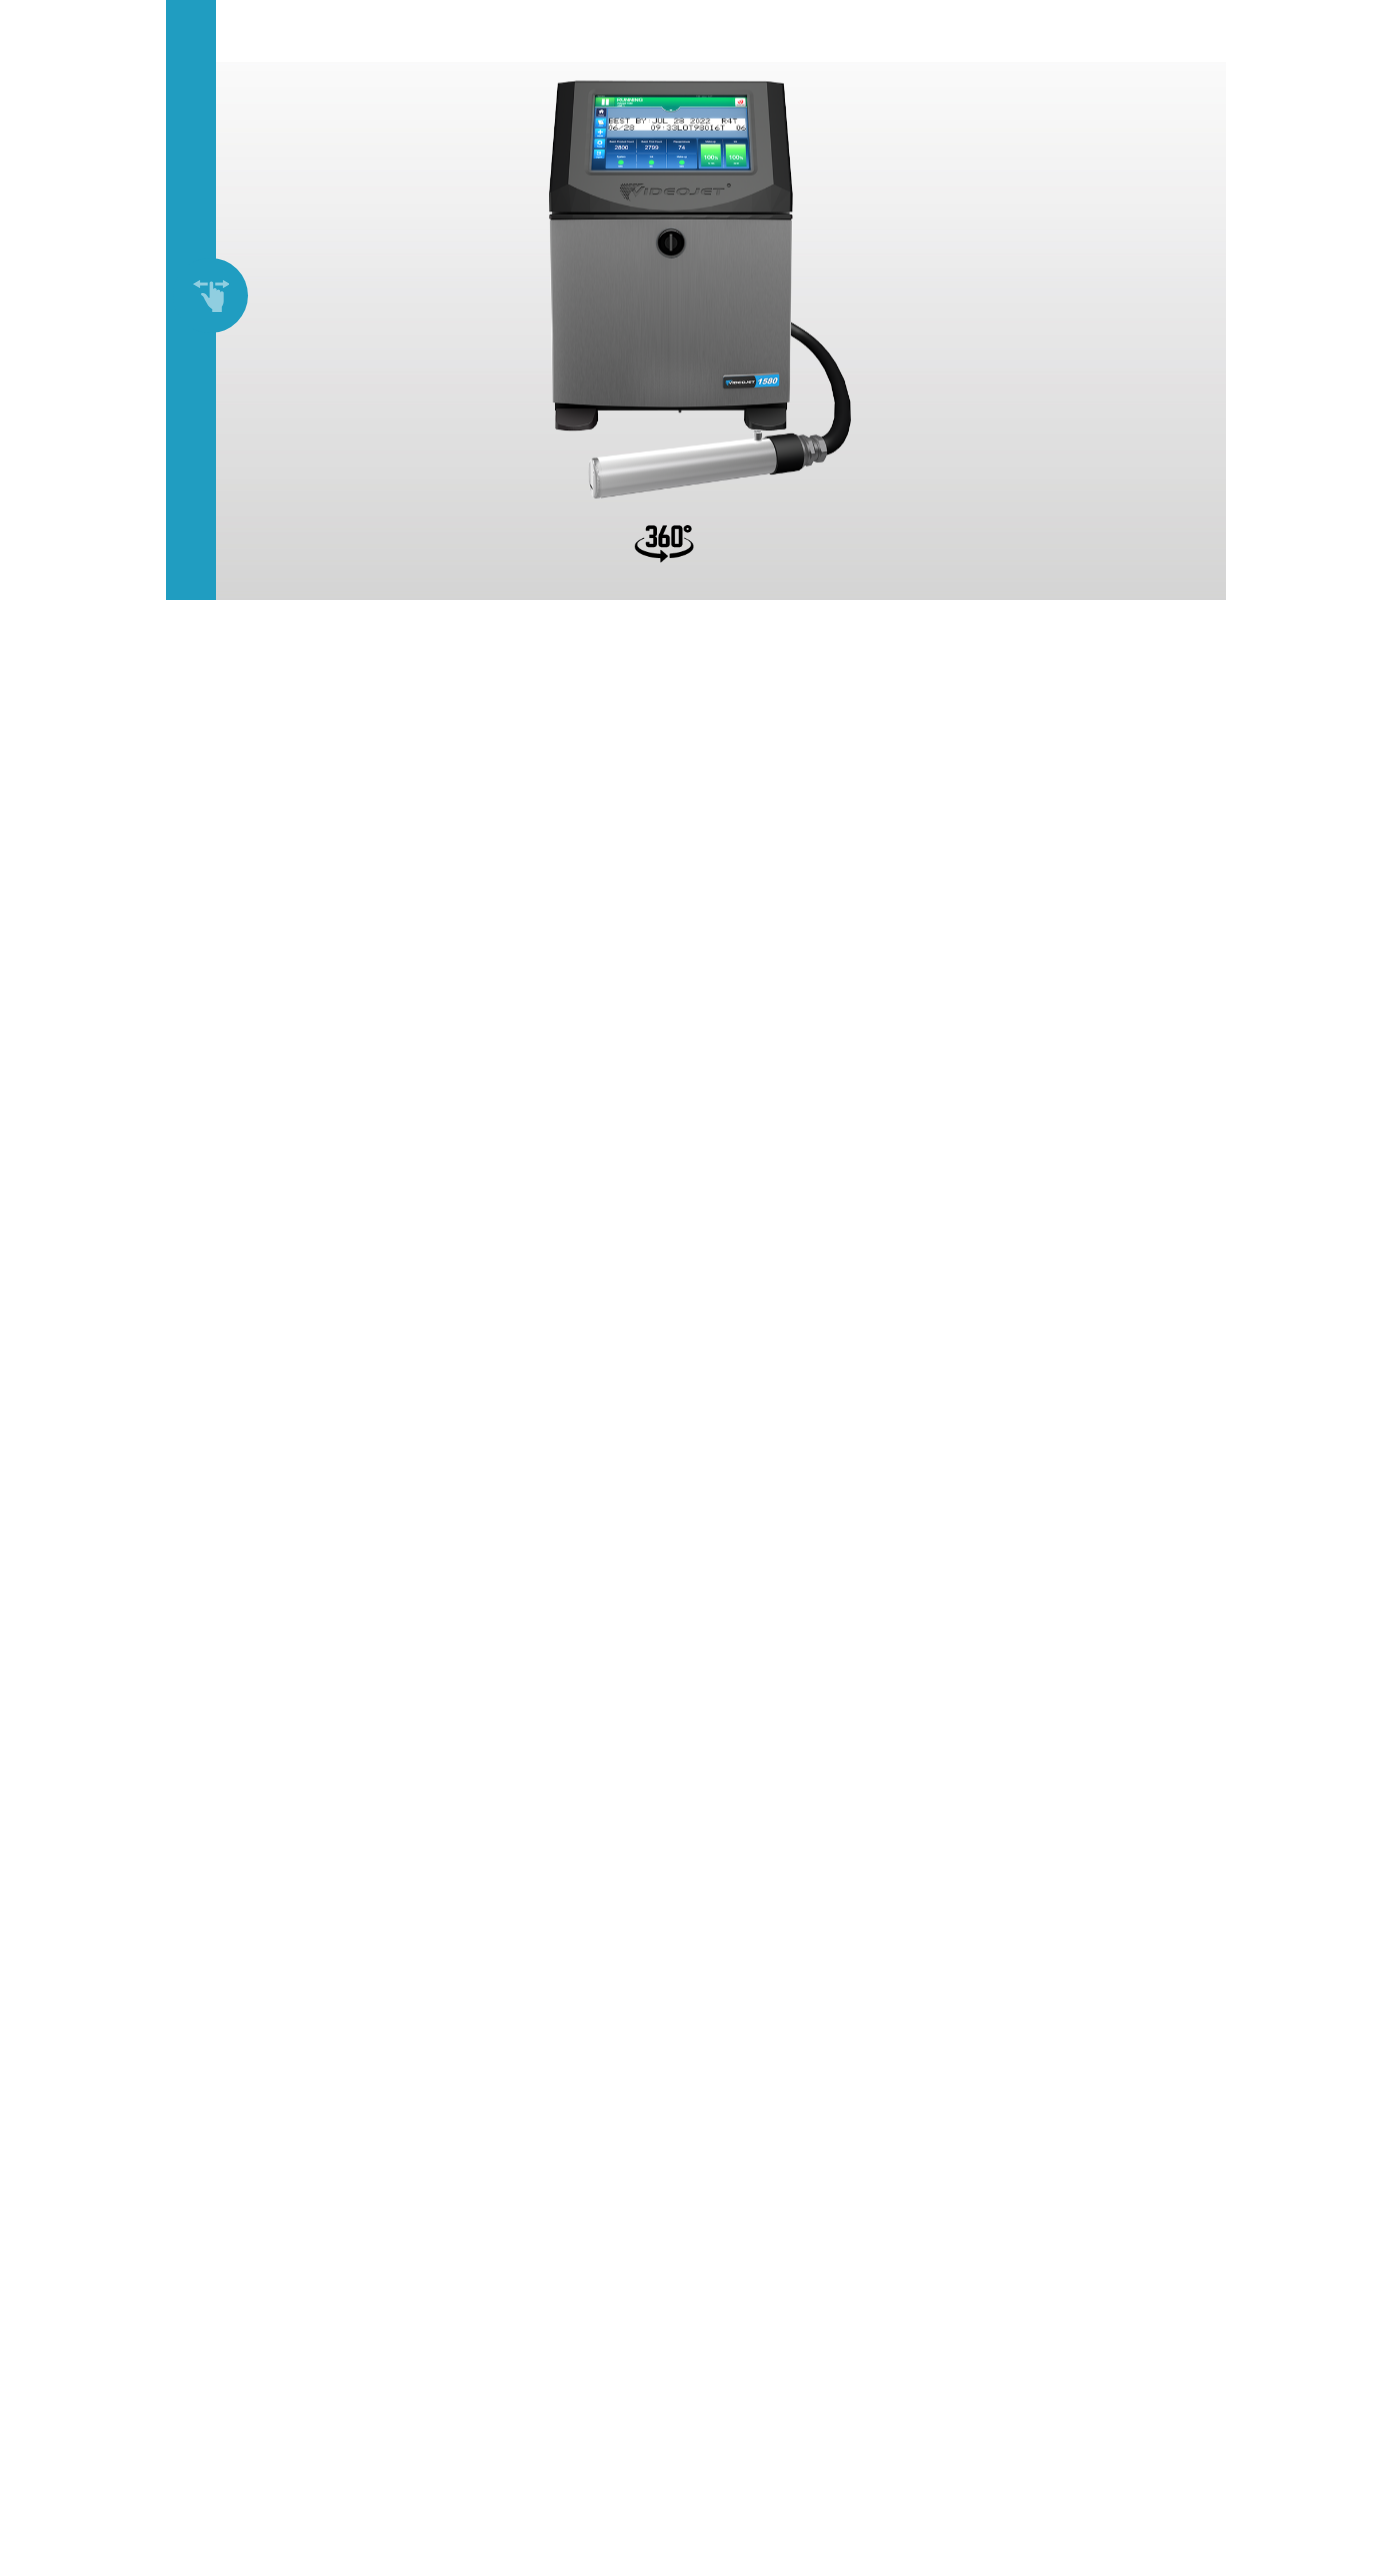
async function draw(canvas) {
  canvas.width = 1392;
  canvas.height = 2565;
  const ctx = canvas.getContext('2d');
  ctx.miterLimit = 4;
  ctx.fontKerning = 'normal';
  function rect(x, y, w, h, color) {
    ctx.fillStyle = color;
    ctx.fillRect(x, y, w, h);
  }
  async function image(src, x, y, w, h) {
    const img = new Image();
    img.src = src;
    await img.decode();
    ctx.drawImage(img, x, y, w, h);
  }

  rect(0, 0, 1392, 2565, '#fff');
  await image('assets/img1.png', 216, 62, 1010, 538);
  rect(166, 0, 50, 600, '#209dc1');
  ctx.beginPath();
  ctx.arc(210.5, 295.5, 37.5, 0, 2 * Math.PI);
  ctx.fill();
  await image('assets/img2.png', 193, 280, 36, 32);
  await image('assets/img3.png', 549, 80, 302, 419);
  await image('assets/img4.png', 634, 525, 60, 38);
}

draw(document.querySelector('canvas'));
